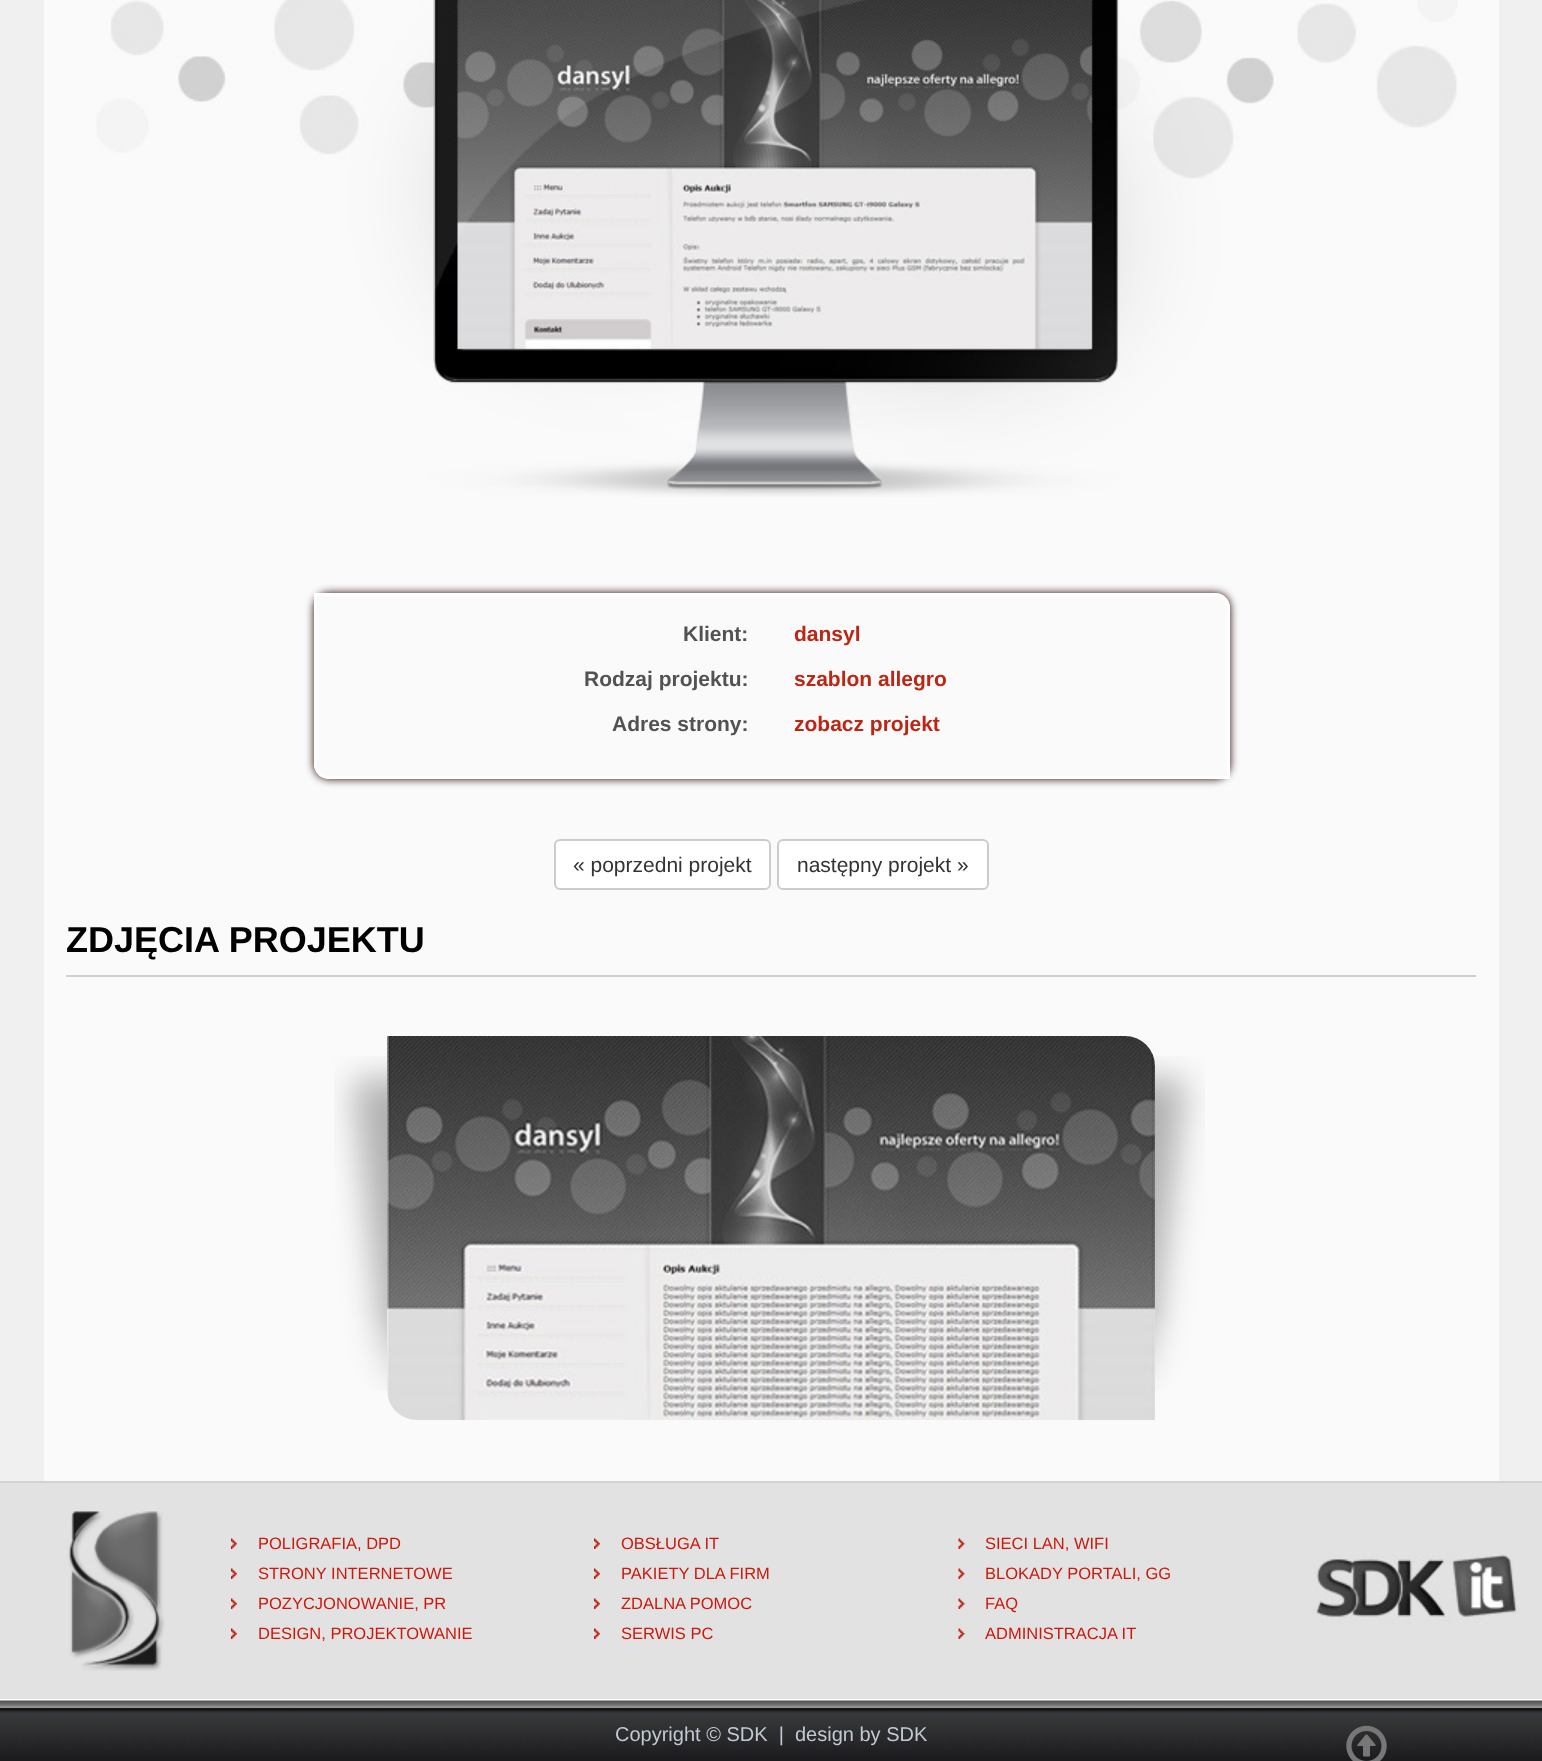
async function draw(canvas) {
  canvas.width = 1542;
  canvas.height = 1761;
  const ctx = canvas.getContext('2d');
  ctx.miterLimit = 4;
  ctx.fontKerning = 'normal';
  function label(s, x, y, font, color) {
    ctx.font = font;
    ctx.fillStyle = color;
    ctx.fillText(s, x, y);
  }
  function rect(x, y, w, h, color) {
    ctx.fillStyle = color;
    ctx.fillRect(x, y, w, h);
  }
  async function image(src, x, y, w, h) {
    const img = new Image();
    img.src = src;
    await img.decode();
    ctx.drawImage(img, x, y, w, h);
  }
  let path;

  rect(0, 0, 1542, 1761, '#f0f0f0');
  rect(44, 0, 1455, 1481, '#fafafa');
  await image('assets/img1.png', 96, 0, 1362, 497);
  ctx.save();
  path = new Path2D('M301 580H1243V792H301ZM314 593H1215C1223.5 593 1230 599.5 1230 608V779H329C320.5 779 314 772.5 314 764Z');
  ctx.clip(path, 'evenodd');
  ctx.fillStyle = '#250000';
  ctx.filter = 'blur(4px)';
  ctx.beginPath();
  ctx.roundRect(314, 593, 916, 186, 15);
  ctx.fill();
  ctx.filter = 'none';
  ctx.restore();
  ctx.beginPath();
  ctx.roundRect(315.5, 594.5, 913, 183, [0, 13.5, 0, 13.5]);
  ctx.strokeStyle = '#fff';
  ctx.lineWidth = 3;
  ctx.stroke();
  label('Klient:', 683, 641, 'bold 21px Liberation Sans', '#525252');
  label('Rodzaj projektu:', 584, 686, 'bold 21px Liberation Sans', '#525252');
  label('Adres strony:', 612, 731, 'bold 21px Liberation Sans', '#525252');
  label('dansyl', 794, 641, 'bold 21px Liberation Sans', '#bd2615');
  label('szablon allegro', 794, 686, 'bold 21px Liberation Sans', '#bd2615');
  label('zobacz projekt', 794, 731, 'bold 21px Liberation Sans', '#bd2615');
  ctx.fillStyle = '#fff';
  ctx.beginPath();
  ctx.roundRect(555, 840, 215, 49, 5);
  ctx.fill();
  ctx.strokeStyle = '#ccc';
  ctx.lineWidth = 2;
  ctx.stroke();
  label('« poprzedni projekt', 573, 872, '21px Liberation Sans', '#333');
  ctx.fillStyle = '#fff';
  ctx.beginPath();
  ctx.roundRect(778, 840, 210, 49, 5);
  ctx.fill();
  ctx.stroke();
  label('następny projekt »', 797, 872, '21px Liberation Sans', '#333');
  label('ZDJĘCIA PROJEKTU', 66, 952, 'bold 36px Liberation Sans', '#000');
  rect(66, 975, 1410, 2, '#cfcfcf');
  await image('assets/img2.png', 334, 1056, 871, 335);
  await image('assets/img3.png', 387, 1036, 768, 384);
  rect(0, 1483, 1542, 216, '#e2e2e2');
  rect(0, 1481, 1542, 2, '#d3d3d3');
  await image('assets/img4.png', 68, 1511, 97, 160);
  await image('assets/img5.png', 231, 1538, 6, 11);
  label('POLIGRAFIA, DPD', 258, 1549, '16.5px Liberation Sans', '#cb190c');
  await image('assets/img5.png', 231, 1568, 6, 11);
  label('STRONY INTERNETOWE', 258, 1579, '16.5px Liberation Sans', '#cb190c');
  await image('assets/img5.png', 231, 1598, 6, 11);
  label('POZYCJONOWANIE, PR', 258, 1609, '16.5px Liberation Sans', '#cb190c');
  await image('assets/img5.png', 231, 1628, 6, 11);
  label('DESIGN, PROJEKTOWANIE', 258, 1639, '16.5px Liberation Sans', '#cb190c');
  await image('assets/img6.png', 594, 1538, 6, 11);
  label('OBSŁUGA IT', 621, 1549, '16.5px Liberation Sans', '#cb190c');
  await image('assets/img6.png', 594, 1568, 6, 11);
  label('PAKIETY DLA FIRM', 621, 1579, '16.5px Liberation Sans', '#cb190c');
  await image('assets/img6.png', 594, 1598, 6, 11);
  label('ZDALNA POMOC', 621, 1609, '16.5px Liberation Sans', '#cb190c');
  await image('assets/img6.png', 594, 1628, 6, 11);
  label('SERWIS PC', 621, 1639, '16.5px Liberation Sans', '#cb190c');
  await image('assets/img7.png', 958, 1538, 7, 11);
  label('SIECI LAN, WIFI', 985, 1549, '16.5px Liberation Sans', '#cb190c');
  await image('assets/img7.png', 958, 1568, 7, 11);
  label('BLOKADY PORTALI, GG', 985, 1579, '16.5px Liberation Sans', '#cb190c');
  await image('assets/img7.png', 958, 1598, 7, 11);
  label('FAQ', 985, 1609, '16.5px Liberation Sans', '#cb190c');
  await image('assets/img7.png', 958, 1628, 7, 11);
  label('ADMINISTRACJA IT', 985, 1639, '16.5px Liberation Sans', '#cb190c');
  await image('assets/img8.png', 1313, 1554, 208, 70);
  await image('assets/img9.png', 0, 1699, 1542, 62);
  label('Copyright © SDK  |  design by SDK', 615, 1741, '20px Liberation Sans', '#c2c9d3');
  await image('assets/img10.png', 1346, 1725, 41, 36);
}

draw(document.querySelector('canvas'));
